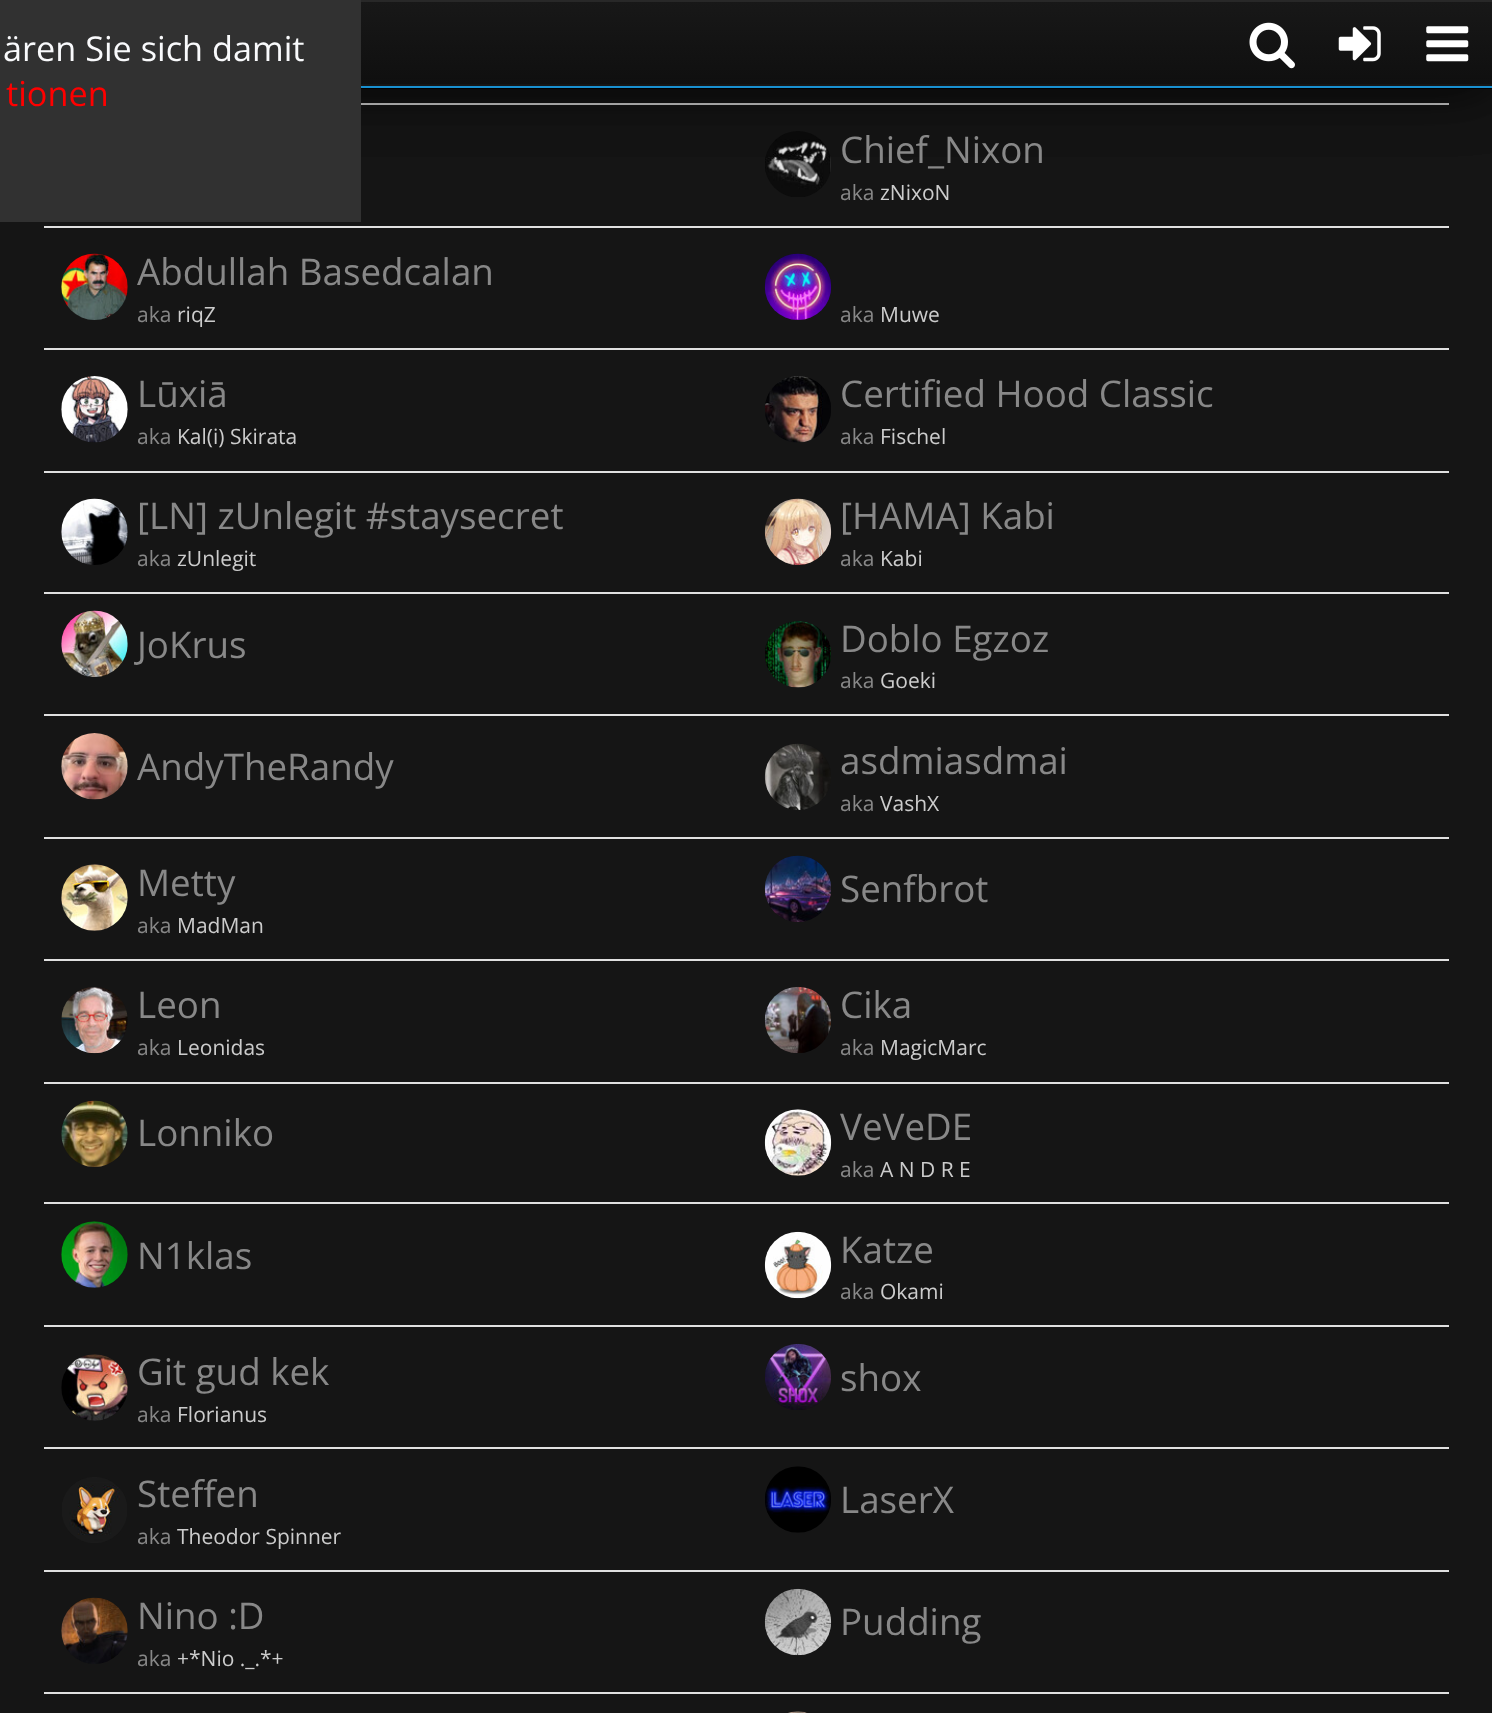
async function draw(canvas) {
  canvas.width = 1492;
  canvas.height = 1713;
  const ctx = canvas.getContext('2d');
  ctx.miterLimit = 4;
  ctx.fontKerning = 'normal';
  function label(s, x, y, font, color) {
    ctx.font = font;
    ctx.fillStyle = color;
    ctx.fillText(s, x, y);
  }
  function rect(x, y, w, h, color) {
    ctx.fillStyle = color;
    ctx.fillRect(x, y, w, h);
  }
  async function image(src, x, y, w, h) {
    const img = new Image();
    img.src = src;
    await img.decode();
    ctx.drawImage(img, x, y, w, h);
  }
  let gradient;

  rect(0, 0, 1492, 1713, '#151515');
  rect(361, 103, 1088, 2, '#e0e0e0');
  await image('assets/img4.png', 765, 131, 66, 66);
  ctx.fillStyle = '#00000080';
  ctx.filter = 'blur(30.5px)';
  ctx.beginPath();
  ctx.rect(0, 0, 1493, 88);
  ctx.fill();
  ctx.filter = 'none';
  ctx.filter = 'blur(30.5px)';
  ctx.beginPath();
  ctx.rect(0, 0, 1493, 88);
  ctx.fill();
  ctx.filter = 'none';
  ctx.strokeStyle = '#000000e6';
  ctx.lineWidth = 2;
  ctx.strokeRect(-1, -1, 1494, 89);
  rect(0, 0, 361, 222, '#313131');
  label('ären Sie sich damit', 3, 61, '34.25px Open Sans', '#f9fafc');
  label('tionen', 6, 106, '34.25px Open Sans', '#f00');
  gradient = ctx.createLinearGradient(746, 0, 746, 86);
  gradient.addColorStop(0, '#181818');
  gradient.addColorStop(1, '#0f0f0f');
  ctx.fillStyle = gradient;
  ctx.fillRect(361, 2, 1131, 82);
  rect(361, 84, 1131, 2, '#161616');
  rect(361, 0, 1131, 2, '#282828');
  rect(361, 86, 1131, 2, '#1990d0');
  await image('assets/img1.png', 1249, 22, 46, 47);
  await image('assets/img2.png', 1338, 26, 43, 36);
  await image('assets/img3.png', 1426, 26, 43, 36);
  label('Chief_Nixon', 840, 163, '36.75px Open Sans', '#888');
  label('aka', 840, 200, '21px Open Sans', '#888');
  label('zNixoN', 880, 200, '21px Open Sans', '#ccc');
  rect(44, 226, 1405, 2, '#e0e0e0');
  rect(44, 348, 1405, 2, '#e0e0e0');
  await image('assets/img5.png', 61, 253, 67, 67);
  label('Abdullah Basedcalan', 137, 285, '36.75px Open Sans', '#888');
  label('aka', 137, 322, '21px Open Sans', '#888');
  label('riqZ', 177, 322, '21px Open Sans', '#ccc');
  await image('assets/img6.png', 764, 253, 68, 67);
  label('aka', 840, 322, '21px Open Sans', '#888');
  label('Muwe', 880, 322, '21px Open Sans', '#ccc');
  rect(44, 471, 1405, 2, '#e0e0e0');
  await image('assets/img7.png', 61, 376, 67, 67);
  label('Lūxiā', 137, 407, '36.75px Open Sans', '#888');
  label('aka', 137, 444, '21px Open Sans', '#888');
  label('Kal(i) Skirata', 177, 444, '21px Open Sans', '#ccc');
  await image('assets/img8.png', 765, 376, 66, 67);
  label('Certified Hood Classic', 840, 407, '36.75px Open Sans', '#888');
  label('aka', 840, 444, '21px Open Sans', '#888');
  label('Fischel', 880, 444, '21px Open Sans', '#ccc');
  rect(44, 592, 1405, 2, '#e0e0e0');
  await image('assets/img9.png', 61, 498, 67, 67);
  label('[LN] zUnlegit #staysecret', 137, 529, '36.75px Open Sans', '#888');
  label('aka', 137, 566, '21px Open Sans', '#888');
  label('zUnlegit', 177, 566, '21px Open Sans', '#ccc');
  await image('assets/img10.png', 764, 498, 68, 67);
  label('[HAMA] Kabi', 840, 529, '36.75px Open Sans', '#888');
  label('aka', 840, 566, '21px Open Sans', '#888');
  label('Kabi', 880, 566, '21px Open Sans', '#ccc');
  rect(44, 714, 1405, 2, '#e0e0e0');
  await image('assets/img11.png', 61, 610, 67, 67);
  label('JoKrus', 137, 658, '36.75px Open Sans', '#888');
  await image('assets/img12.png', 765, 621, 66, 67);
  label('Doblo Egzoz', 840, 652, '36.75px Open Sans', '#888');
  label('aka', 840, 688, '21px Open Sans', '#888');
  label('Goeki', 880, 688, '21px Open Sans', '#ccc');
  rect(44, 837, 1405, 2, '#e0e0e0');
  await image('assets/img13.png', 61, 733, 67, 67);
  label('AndyTheRandy', 137, 780, '36.75px Open Sans', '#888');
  await image('assets/img14.png', 764, 743, 67, 67);
  label('asdmiasdmai', 840, 774, '36.75px Open Sans', '#888');
  label('aka', 840, 811, '21px Open Sans', '#888');
  label('VashX', 880, 811, '21px Open Sans', '#ccc');
  rect(44, 959, 1405, 2, '#e0e0e0');
  await image('assets/img15.png', 61, 864, 67, 67);
  label('Metty', 137, 896, '36.75px Open Sans', '#888');
  label('aka', 137, 933, '21px Open Sans', '#888');
  label('MadMan', 177, 933, '21px Open Sans', '#ccc');
  await image('assets/img16.png', 764, 855, 67, 67);
  label('Senfbrot', 840, 902, '36.75px Open Sans', '#888');
  rect(44, 1082, 1405, 2, '#e0e0e0');
  await image('assets/img17.png', 61, 987, 67, 67);
  label('Leon', 137, 1018, '36.75px Open Sans', '#888');
  label('aka', 137, 1055, '21px Open Sans', '#888');
  label('Leonidas', 177, 1055, '21px Open Sans', '#ccc');
  await image('assets/img18.png', 764, 986, 67, 67);
  label('Cika', 840, 1018, '36.75px Open Sans', '#888');
  label('aka', 840, 1055, '21px Open Sans', '#888');
  label('MagicMarc', 880, 1055, '21px Open Sans', '#ccc');
  rect(44, 1202, 1405, 2, '#e0e0e0');
  await image('assets/img19.png', 61, 1100, 67, 67);
  label('Lonniko', 137, 1146, '36.75px Open Sans', '#888');
  await image('assets/img20.png', 764, 1109, 68, 67);
  label('VeVeDE', 840, 1140, '36.75px Open Sans', '#888');
  label('aka', 840, 1177, '21px Open Sans', '#888');
  label('A N D R E', 880, 1177, '21px Open Sans', '#ccc');
  rect(44, 1325, 1405, 2, '#e0e0e0');
  await image('assets/img21.png', 61, 1221, 67, 67);
  label('N1klas', 137, 1269, '36.75px Open Sans', '#888');
  await image('assets/img22.png', 764, 1231, 68, 68);
  label('Katze', 840, 1263, '36.75px Open Sans', '#888');
  label('aka', 840, 1299, '21px Open Sans', '#888');
  label('Okami', 880, 1299, '21px Open Sans', '#ccc');
  rect(44, 1447, 1405, 2, '#e0e0e0');
  await image('assets/img23.png', 61, 1354, 67, 67);
  label('Git gud kek', 137, 1385, '36.75px Open Sans', '#888');
  label('aka', 137, 1422, '21px Open Sans', '#888');
  label('Florianus', 177, 1422, '21px Open Sans', '#ccc');
  await image('assets/img24.png', 765, 1343, 66, 67);
  label('shox', 840, 1391, '36.75px Open Sans', '#888');
  rect(44, 1570, 1405, 2, '#e0e0e0');
  await image('assets/img25.png', 62, 1477, 65, 66);
  label('Steffen', 137, 1507, '36.75px Open Sans', '#888');
  label('aka', 137, 1544, '21px Open Sans', '#888');
  label('Theodor Spinner', 177, 1544, '21px Open Sans', '#ccc');
  await image('assets/img26.png', 765, 1466, 66, 67);
  label('LaserX', 840, 1513, '36.75px Open Sans', '#888');
  rect(44, 1692, 1405, 2, '#e0e0e0');
  await image('assets/img27.png', 61, 1597, 67, 67);
  label('Nino :D', 137, 1629, '36.75px Open Sans', '#888');
  label('aka', 137, 1666, '21px Open Sans', '#888');
  label('+*Nio ._.*+', 177, 1666, '21px Open Sans', '#ccc');
  await image('assets/img28.png', 764, 1588, 68, 68);
  label('Pudding', 840, 1635, '36.75px Open Sans', '#888');
  await image('assets/img29.png', 788, 1711, 20, 2);
}

draw(document.querySelector('canvas'));
